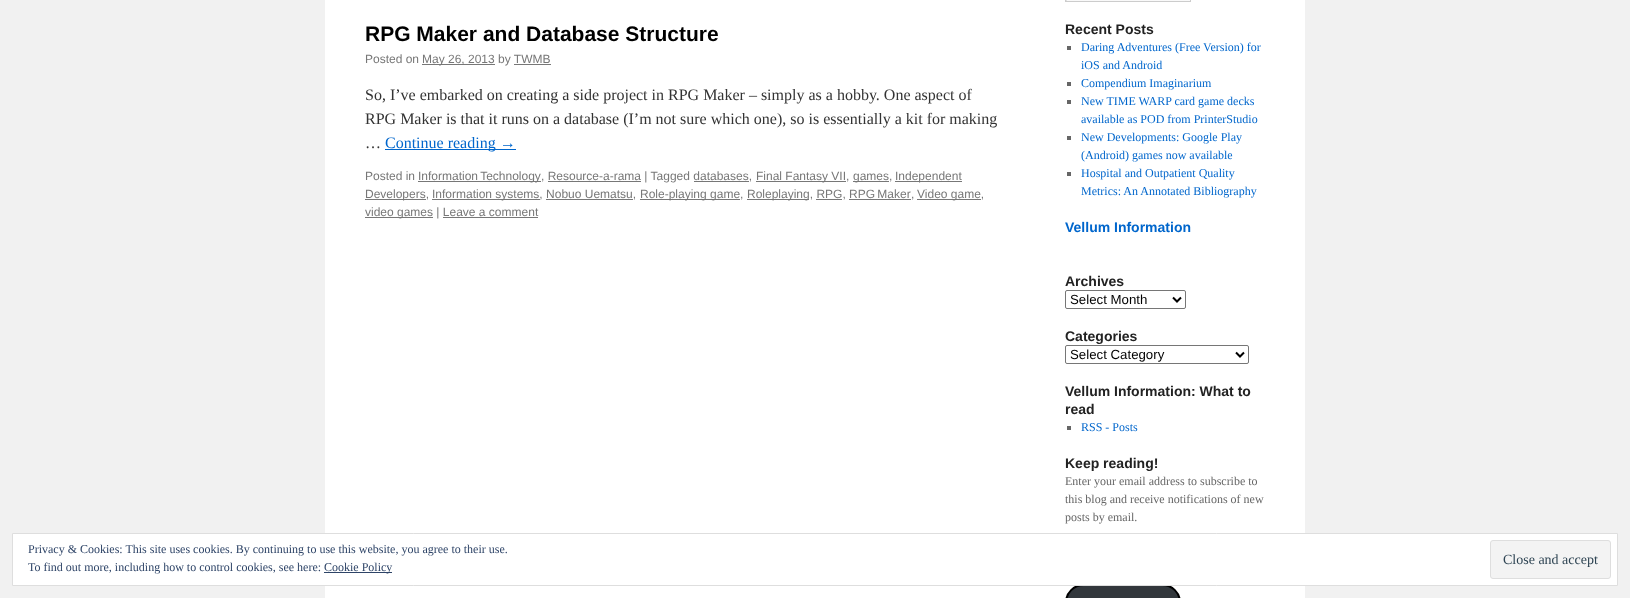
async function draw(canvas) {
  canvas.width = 1630;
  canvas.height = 598;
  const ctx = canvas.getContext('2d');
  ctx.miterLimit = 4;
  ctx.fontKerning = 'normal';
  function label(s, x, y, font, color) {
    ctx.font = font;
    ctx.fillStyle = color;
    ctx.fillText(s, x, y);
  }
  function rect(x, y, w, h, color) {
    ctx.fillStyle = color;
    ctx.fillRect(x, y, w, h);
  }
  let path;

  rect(0, 0, 1630, 598, '#f1f1f1');
  rect(325, 0, 980, 598, '#fff');
  label('RPG Maker and Database Structure', 365, 41, 'bold 21px Liberation Sans', '#000');
  label('Posted on', 365, 63, '12px Liberation Sans', '#777');
  rect(422, 64, 73, 1, '#777');
  label('May 26, 2013 by TWMB', 422, 63, '12px Liberation Sans', '#777');
  rect(514, 64, 37, 1, '#777');
  label('So, I’ve embarked on creating a side project in RPG Maker – simply as a hobby. One aspect of', 365, 100, '16px Liberation Serif', '#333');
  label('RPG Maker is that it runs on a database (I’m not sure which one), so is essentially a kit for making', 365, 124, '16px Liberation Serif', '#333');
  label('…', 365, 148, '16px Liberation Serif', '#333');
  rect(385, 149, 131, 1, '#06c');
  label('Continue reading →', 385, 148, '16px Liberation Serif', '#06c');
  label('Posted in', 365, 180, '12px Liberation Sans', '#777');
  rect(418, 181, 123, 1, '#777');
  ctx.wordSpacing = '-1px';
  label('Information Technology', 418, 180, '12px Liberation Sans', '#777');
  ctx.wordSpacing = '0px';
  label(', Resource-a-rama | Tagged databases,', 541, 180, '12px Liberation Sans', '#777');
  rect(548, 181, 93, 1, '#777');
  rect(756, 181, 90, 1, '#777');
  label('Final Fantasy VII,', 756, 180, '12px Liberation Sans', '#777');
  rect(694, 181, 55, 1, '#777');
  rect(853, 181, 36, 1, '#777');
  label('games,', 853, 180, '12px Liberation Sans', '#777');
  rect(895, 181, 67, 1, '#777');
  label('Independent', 895, 180, '12px Liberation Sans', '#777');
  rect(365, 199, 61, 1, '#777');
  label('Developers,', 365, 198, '12px Liberation Sans', '#777');
  rect(432, 199, 108, 1, '#777');
  label('Information systems, Nobuo Uematsu,', 432, 198, '12px Liberation Sans', '#777');
  rect(546, 199, 87, 1, '#777');
  rect(640, 199, 100, 1, '#777');
  label('Role-playing game,', 640, 198, '12px Liberation Sans', '#777');
  rect(747, 199, 62, 1, '#777');
  label('Roleplaying, RPG,', 747, 198, '12px Liberation Sans', '#777');
  rect(816, 199, 26, 1, '#777');
  ctx.wordSpacing = '-1px';
  label('RPG Maker', 849, 198, '12px Liberation Sans', '#777');
  ctx.wordSpacing = '0px';
  label(',', 911, 198, '12px Liberation Sans', '#777');
  rect(849, 199, 62, 1, '#777');
  rect(917, 199, 64, 1, '#777');
  label('Video game,', 917, 198, '12px Liberation Sans', '#777');
  rect(365, 217, 68, 1, '#777');
  label('video games | Leave a comment', 365, 216, '12px Liberation Sans', '#777');
  rect(443, 217, 95, 1, '#777');
  rect(1065, 0, 126, 1, '#f9f9f9');
  ctx.save();
  ctx.beginPath();
  ctx.rect(1066, 0, 124, 1);
  ctx.clip();
  ctx.fillStyle = '#e0e0e0';
  path = new Path2D('M967-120H1289V100H967ZM1067-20H1191V2H1067Z');
  ctx.fill(path, 'evenodd');
  ctx.restore();
  ctx.strokeStyle = '#ccc';
  ctx.strokeRect(1065.5, -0.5, 125, 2);
  label('Recent Posts', 1065, 34, 'bold 14px Liberation Sans', '#222');
  rect(1067, 46, 4, 4, '#666');
  label('Daring Adventures (Free Version) for', 1081, 51, '12px Liberation Serif', '#06c');
  label('iOS and Android', 1081, 69, '12px Liberation Serif', '#06c');
  rect(1067, 82, 4, 4, '#666');
  label('Compendium Imaginarium', 1081, 87, '12px Liberation Serif', '#06c');
  rect(1067, 100, 4, 4, '#666');
  label('New TIME WARP card game decks', 1081, 105, '12px Liberation Serif', '#06c');
  label('available as POD from PrinterStudio', 1081, 123, '12px Liberation Serif', '#06c');
  rect(1067, 136, 4, 4, '#666');
  label('New Developments: Google Play', 1081, 141, '12px Liberation Serif', '#06c');
  label('(Android) games now available', 1081, 159, '12px Liberation Serif', '#06c');
  rect(1067, 172, 4, 4, '#666');
  label('Hospital and Outpatient Quality', 1081, 177, '12px Liberation Serif', '#06c');
  label('Metrics: An Annotated Bibliography', 1081, 195, '12px Liberation Serif', '#06c');
  label('Vellum Information', 1065, 232, 'bold 14px Liberation Sans', '#06c');
  label('Archives', 1065, 286, 'bold 14px Liberation Sans', '#222');
  ctx.beginPath();
  ctx.roundRect(1065.5, 290.5, 120, 18, 1.5);
  ctx.strokeStyle = '#767676';
  ctx.stroke();
  path = new Path2D('M1173 297.5L1177 301.5L1181 297.5');
  ctx.strokeStyle = '#000';
  ctx.lineWidth = 2;
  ctx.stroke(path);
  label('Select Month', 1070, 304, '13.25px Liberation Sans', '#000');
  label('Categories', 1065, 341, 'bold 14px Liberation Sans', '#222');
  ctx.beginPath();
  ctx.roundRect(1065.5, 345.5, 183, 18, 1.5);
  ctx.strokeStyle = '#767676';
  ctx.lineWidth = 1;
  ctx.stroke();
  path = new Path2D('M1236 352.5L1240 356.5L1244 352.5');
  ctx.strokeStyle = '#000';
  ctx.lineWidth = 2;
  ctx.stroke(path);
  label('Select Category', 1070, 359, '13.25px Liberation Sans', '#000');
  label('Vellum Information: What to', 1065, 396, 'bold 14px Liberation Sans', '#222');
  label('read', 1065, 414, 'bold 14px Liberation Sans', '#222');
  rect(1067, 426, 4, 4, '#666');
  label('RSS - Posts', 1081, 431, '12px Liberation Serif', '#06c');
  label('Keep reading!', 1065, 468, 'bold 14px Liberation Sans', '#222');
  label('Enter your email address to subscribe to', 1065, 485, '12px Liberation Serif', '#666');
  label('this blog and receive notifications of new', 1065, 503, '12px Liberation Serif', '#666');
  label('posts by email.', 1065, 521, '12px Liberation Serif', '#666');
  ctx.fillStyle = '#32373c';
  ctx.beginPath();
  ctx.roundRect(1066, 585, 114, 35, 19.5);
  ctx.fill();
  ctx.stroke();
  ctx.fillStyle = '#fff';
  ctx.beginPath();
  ctx.rect(12.5, 533.5, 1605, 52);
  ctx.fill();
  ctx.strokeStyle = '#dedede';
  ctx.lineWidth = 1;
  ctx.stroke();
  label('Privacy & Cookies: This site uses cookies. By continuing to use this website, you agree to their use.', 28, 553, '12px Liberation Serif', '#2e4467');
  label('To find out more, including how to control cookies, see here:', 28, 571, '12px Liberation Serif', '#2e4467');
  rect(324, 572, 68, 1, '#2e4467');
  label('Cookie Policy', 324, 571, '12px Liberation Serif', '#2e4467');
  ctx.fillStyle = '#f3f3f3';
  ctx.beginPath();
  ctx.roundRect(1490.5, 540.5, 120, 38, 2.5);
  ctx.fill();
  ctx.stroke();
  label('Close and accept', 1503, 564, '14px Liberation Serif', '#2e4453');
}

draw(document.querySelector('canvas'));
